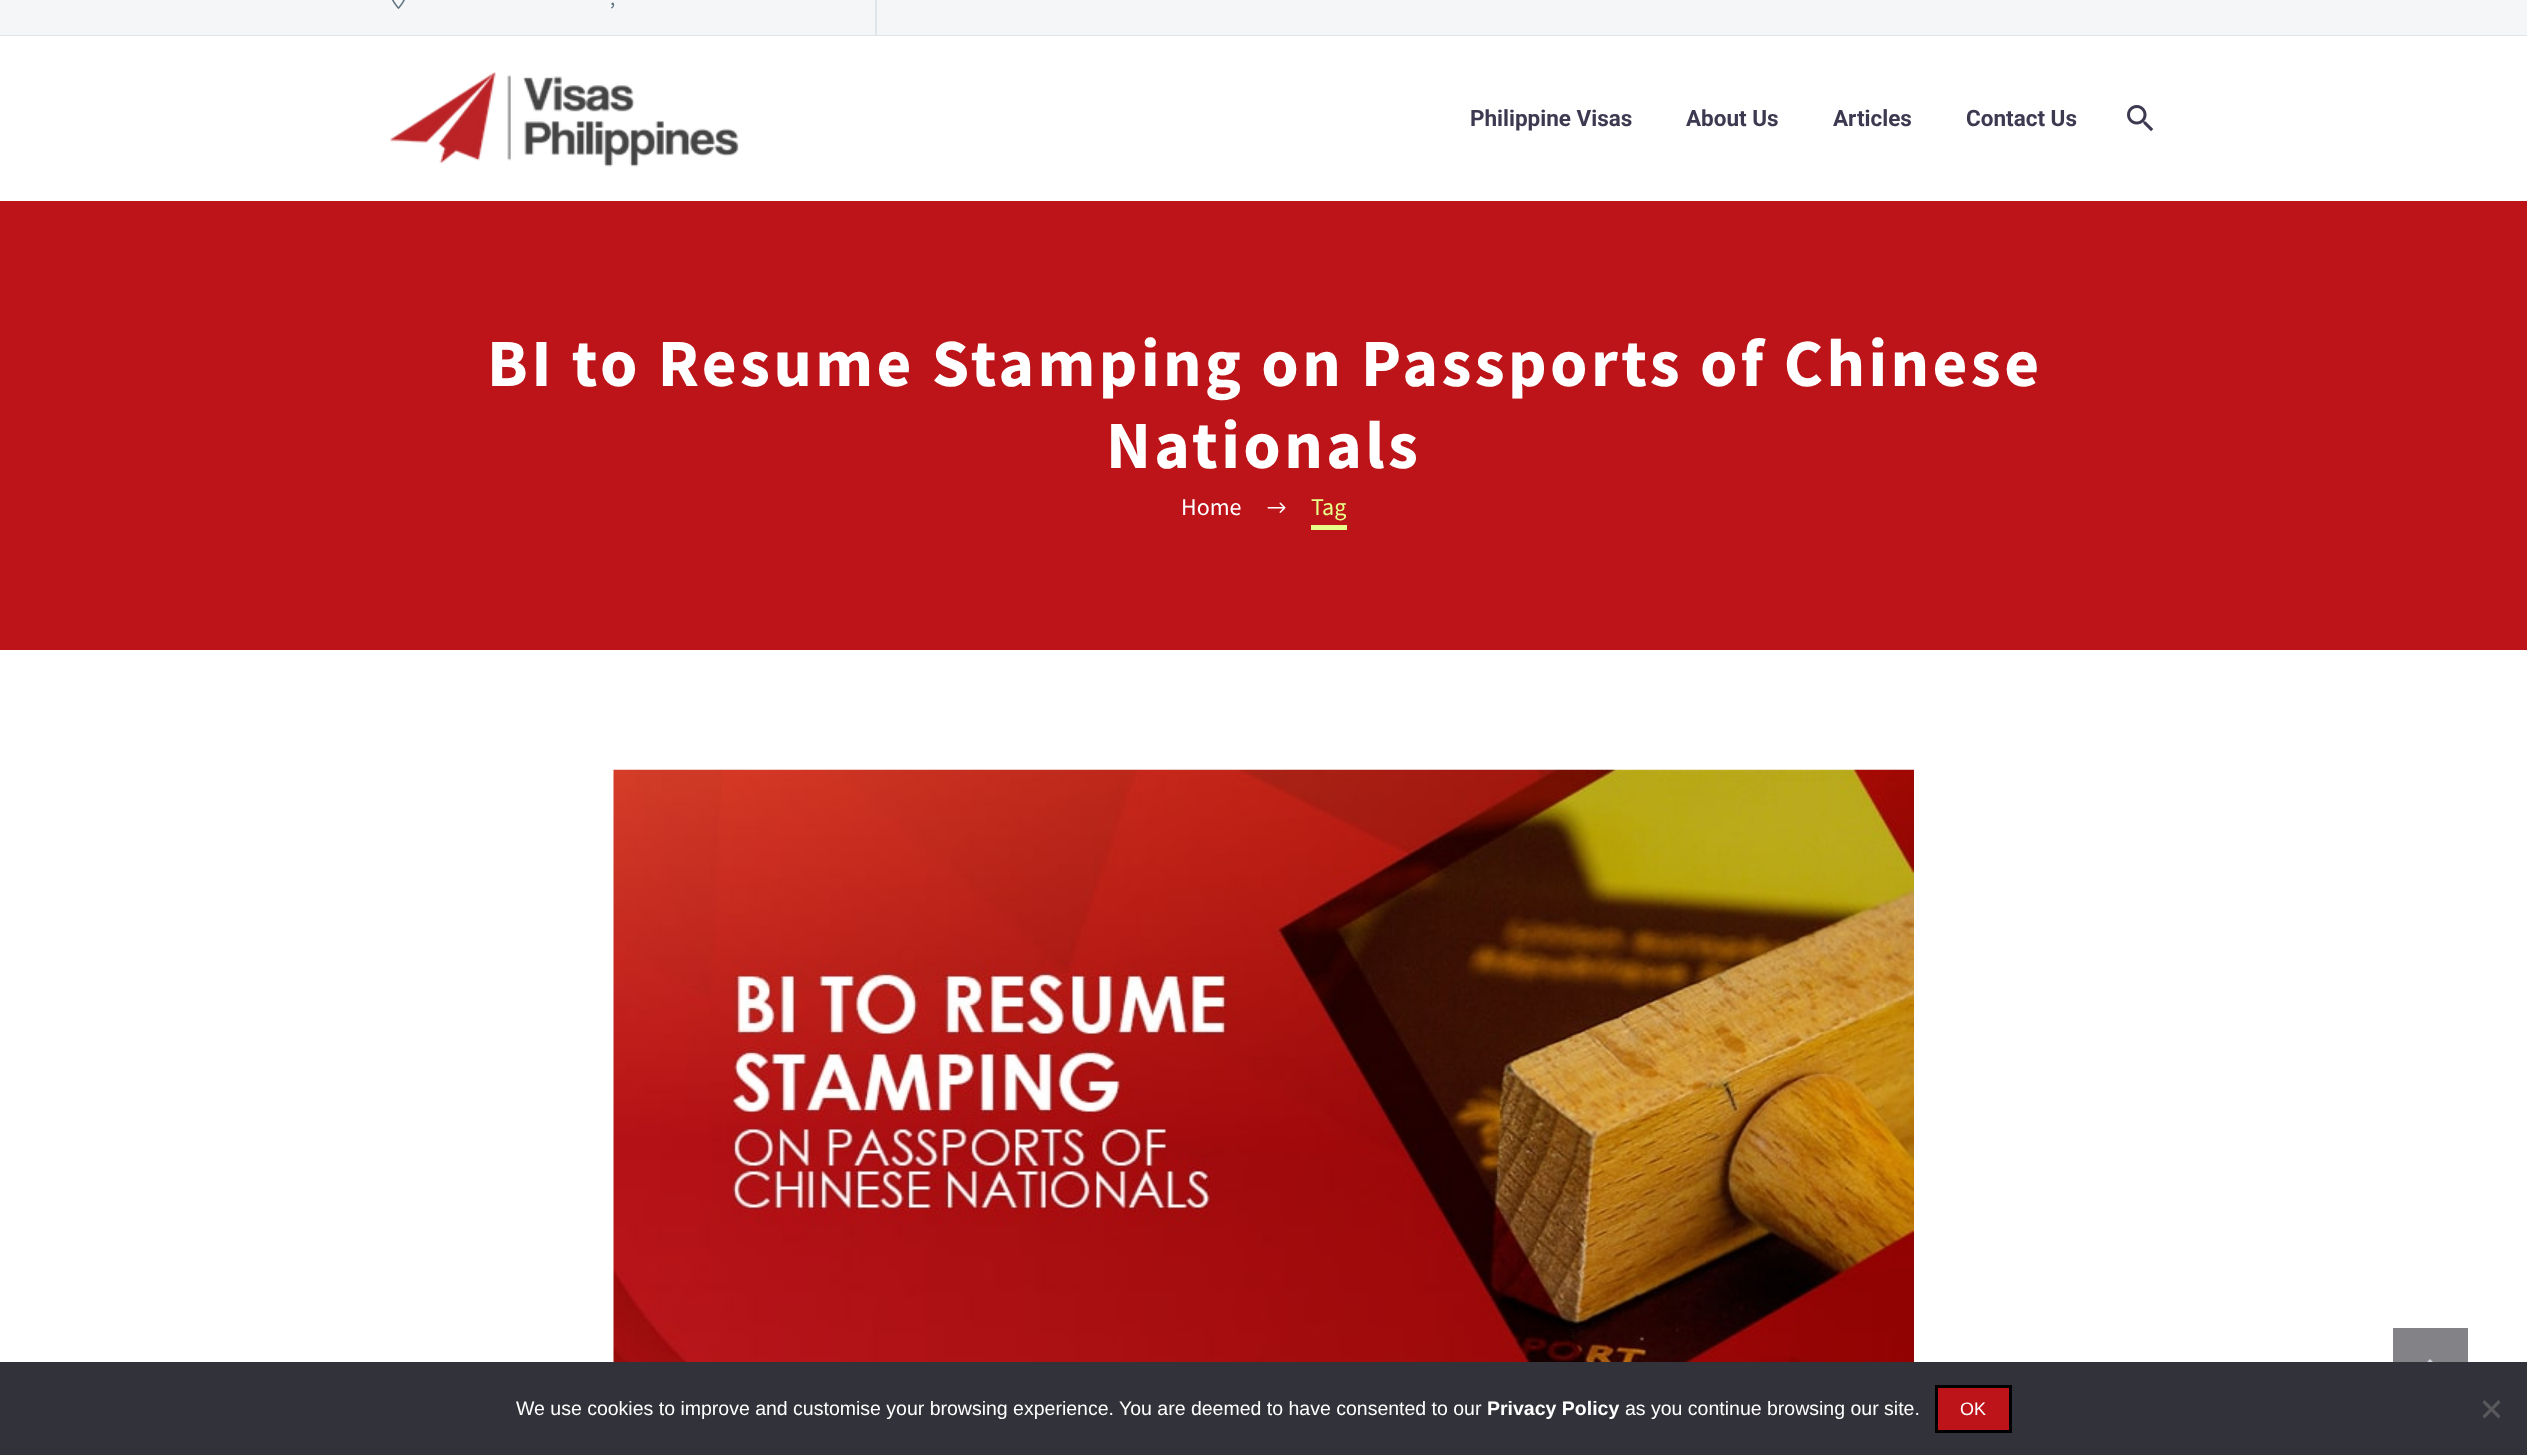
async function draw(canvas) {
  canvas.width = 2527;
  canvas.height = 1455;
  const ctx = canvas.getContext('2d');
  ctx.miterLimit = 4;
  ctx.fontKerning = 'normal';
  function label(s, x, y, font, color) {
    ctx.font = font;
    ctx.fillStyle = color;
    ctx.fillText(s, x, y);
  }
  function rect(x, y, w, h, color) {
    ctx.fillStyle = color;
    ctx.fillRect(x, y, w, h);
  }
  async function image(src, x, y, w, h) {
    const img = new Image();
    img.src = src;
    await img.decode();
    ctx.drawImage(img, x, y, w, h);
  }
  let path;

  rect(0, 0, 2527, 1455, '#f4f6f7');
  rect(0, 35, 2527, 1, '#dfe5e8');
  await image('assets/img1.png', 392, 0, 13, 9);
  label(',', 610, 5, '21px Source Sans Pro', '#5f727f');
  rect(875, 0, 2, 35, '#dfe5e8');
  rect(0, 36, 2527, 165, '#fff');
  await image('assets/img2.png', 390, 71, 349, 96);
  label('Philippine Visas', 1470, 126, 'bold 22.5px Roboto', '#3c3950');
  label('About Us', 1686, 126, 'bold 22.5px Roboto', '#3c3950');
  label('Articles', 1833, 126, 'bold 22.5px Roboto', '#3c3950');
  label('Contact Us', 1966, 126, 'bold 22.5px Roboto', '#3c3950');
  await image('assets/img3.png', 2127, 105, 27, 27);
  rect(0, 201, 2527, 449, '#bc1419');
  ctx.letterSpacing = '3.4px';
  label('BI to Resume Stamping on Passports of Chinese', 487, 386, 'bold 67.5px Source Sans Pro', '#fff');
  label('Nationals', 1106, 468, 'bold 67.5px Source Sans Pro', '#fff');
  ctx.letterSpacing = '0px';
  label('Home', 1181, 515, '24px Source Sans Pro', '#fff');
  await image('assets/img4.png', 1267, 502, 19, 11);
  rect(1311, 525, 36, 5, '#e7ff89');
  label('Tag', 1311, 515, '24px Source Sans Pro', '#e7ff89');
  rect(0, 650, 2527, 712, '#fff');
  await image('assets/img5.png', 613, 769, 1301, 593);
  rect(2393, 1328, 75, 34, '#838387');
  ctx.fillStyle = '#ccd4da';
  path = new Path2D('M2423 1370L2430 1363L2437 1370L2439 1368L2430 1359L2421 1368Z');
  ctx.fill(path);
  rect(0, 1362, 2527, 93, '#32323a');
  label('We use cookies to improve and customise your browsing experience. You are deemed to have consented to our', 516, 1415, '19.5px Liberation Sans', '#fff');
  label('Privacy Policy', 1487, 1415, 'bold 19.5px Liberation Sans', '#fff');
  label('as you continue browsing our site.', 1625, 1415, '19.5px Liberation Sans', '#fff');
  ctx.fillStyle = '#bc1419';
  ctx.beginPath();
  ctx.rect(1936.5, 1386.5, 74, 45);
  ctx.fill();
  ctx.strokeStyle = '#000';
  ctx.lineWidth = 3;
  ctx.stroke();
  label('OK', 1960, 1415, '18px Liberation Sans', '#fff');
  ctx.fillStyle = '#59595d';
  path = new Path2D('M2498.5 1400L2500.5 1402.5L2484.5 1418.5L2482.5 1416Z');
  ctx.fill(path);
  path = new Path2D('M2482.5 1402.5L2484.5 1400L2500.5 1416L2498.5 1418.5Z');
  ctx.fill(path);
}

draw(document.querySelector('canvas'));
